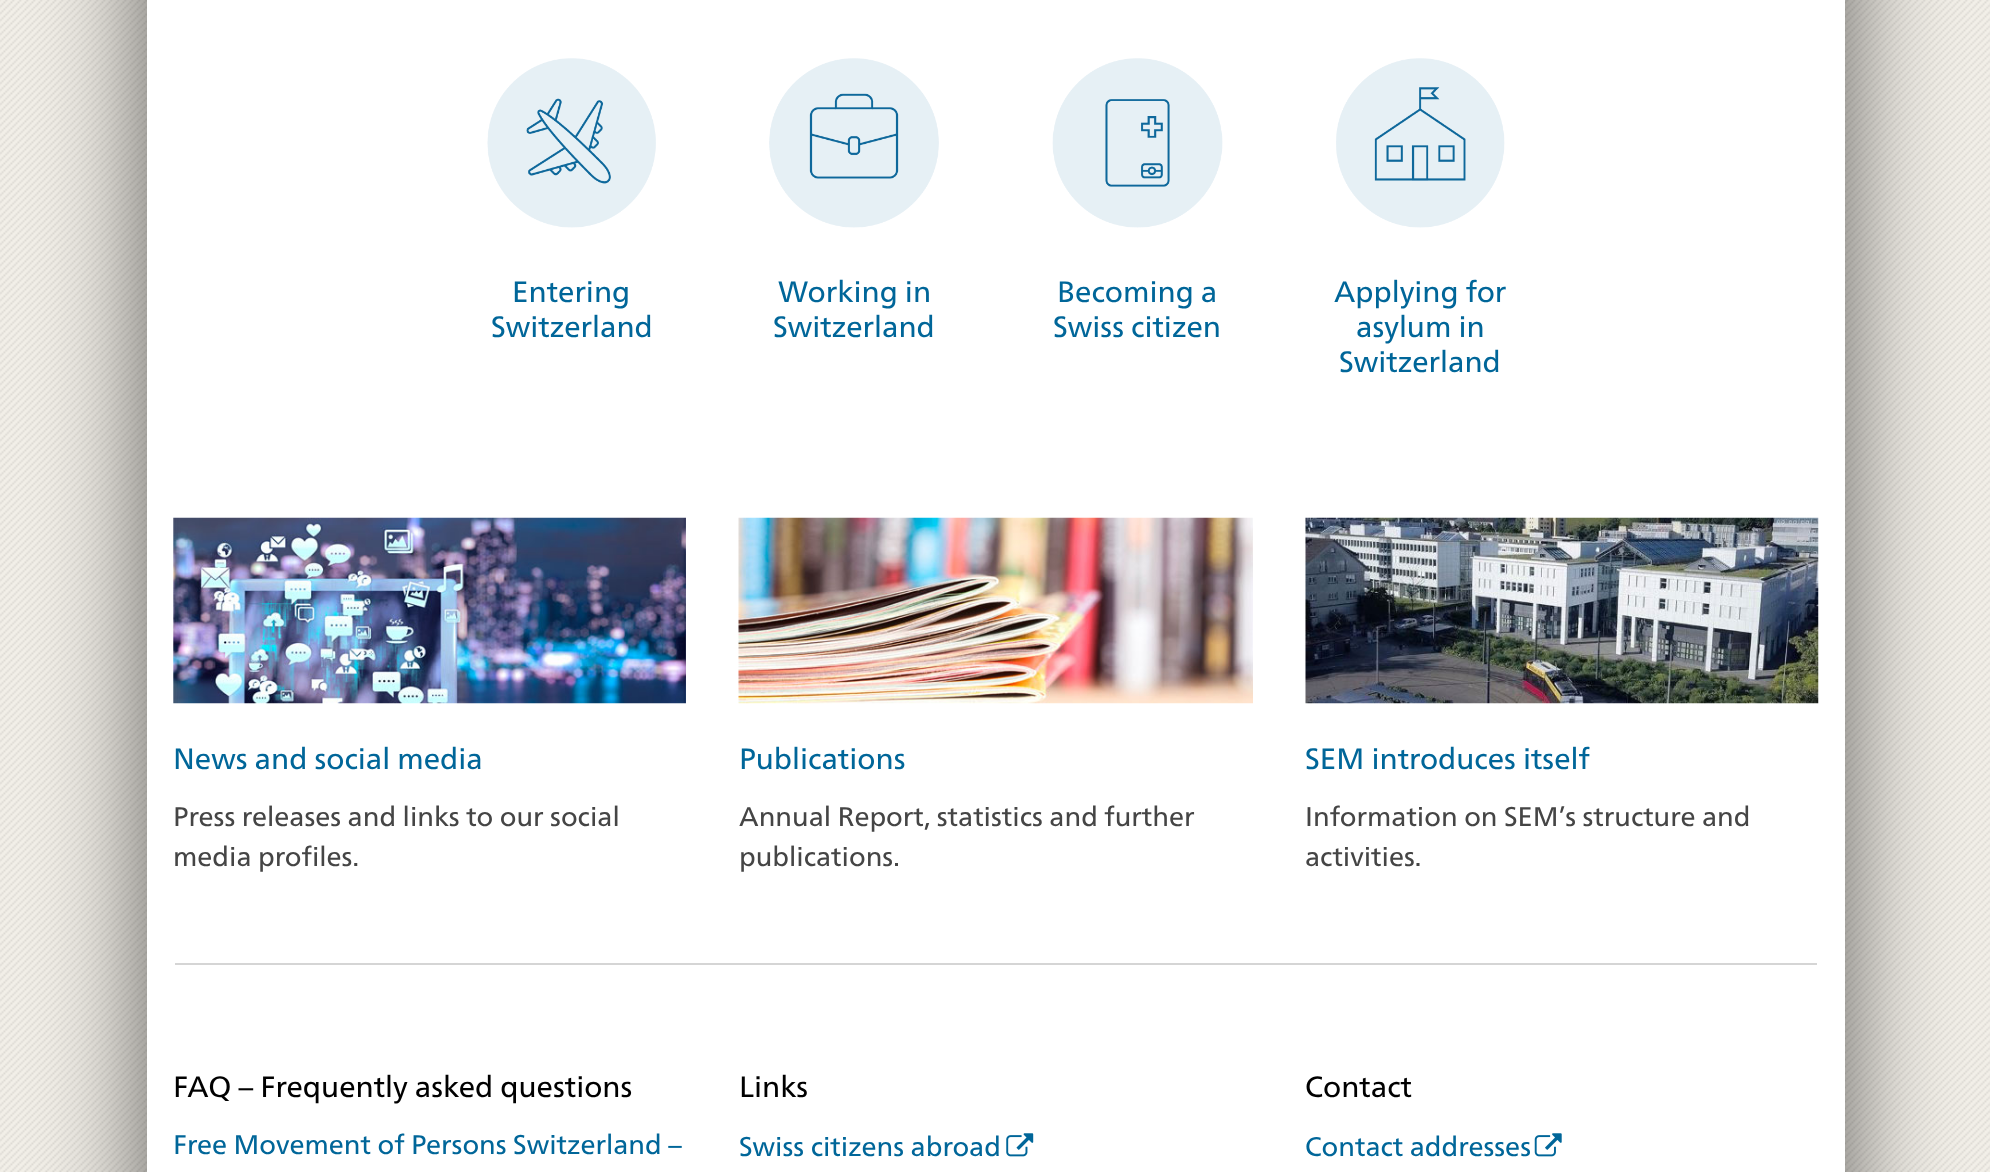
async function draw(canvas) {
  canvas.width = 1990;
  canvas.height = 1172;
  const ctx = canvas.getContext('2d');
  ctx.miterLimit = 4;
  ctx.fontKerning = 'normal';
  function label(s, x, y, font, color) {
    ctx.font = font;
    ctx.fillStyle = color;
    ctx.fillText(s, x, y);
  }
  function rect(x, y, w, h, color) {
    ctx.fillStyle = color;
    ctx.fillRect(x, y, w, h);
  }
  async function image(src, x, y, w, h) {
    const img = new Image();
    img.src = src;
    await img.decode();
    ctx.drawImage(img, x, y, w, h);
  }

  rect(0, 0, 1990, 1172, '#fff');
  await image('assets/img1.png', 0, 0, 1990, 1172);
  ctx.fillStyle = '#00000099';
  ctx.filter = 'blur(52.5px)';
  ctx.beginPath();
  ctx.rect(147, -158, 1698, 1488);
  ctx.fill();
  ctx.filter = 'none';
  rect(147, 0, 1698, 1172, '#fff');
  await image('assets/img2.png', 487, 58, 169, 170);
  label('Entering', 512, 302, '29.4px "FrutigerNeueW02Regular"', '#069');
  label('Switzerland', 491, 337, '29.4px "FrutigerNeueW02Regular"', '#069');
  await image('assets/img3.png', 769, 58, 170, 170);
  label('Working in', 778, 302, '29.4px "FrutigerNeueW02Regular"', '#069');
  label('Switzerland', 773, 337, '29.4px "FrutigerNeueW02Regular"', '#069');
  await image('assets/img4.png', 1052, 58, 171, 170);
  label('Becoming a', 1057, 302, '29.4px "FrutigerNeueW02Regular"', '#069');
  label('Swiss citizen', 1053, 337, '29.4px "FrutigerNeueW02Regular"', '#069');
  await image('assets/img5.png', 1336, 58, 169, 170);
  label('Applying for', 1334, 302, '29.4px "FrutigerNeueW02Regular"', '#069');
  label('asylum in', 1356, 337, '29.4px "FrutigerNeueW02Regular"', '#069');
  label('Switzerland', 1339, 372, '29.4px "FrutigerNeueW02Regular"', '#069');
  await image('assets/img6.png', 173, 517, 513, 187);
  label('News and social media', 173, 769, '29.4px "FrutigerNeueW02Regular"', '#069');
  label('Press releases and links to our social', 173, 826, '27px "FrutigerNeueW02Regular"', '#454545');
  label('media profiles.', 173, 866, '27px "FrutigerNeueW02Regular"', '#454545');
  await image('assets/img7.png', 738, 517, 515, 187);
  label('Publications', 739, 769, '29.4px "FrutigerNeueW02Regular"', '#069');
  label('Annual Report, statistics and further', 739, 826, '27px "FrutigerNeueW02Regular"', '#454545');
  label('publications.', 739, 866, '27px "FrutigerNeueW02Regular"', '#454545');
  await image('assets/img8.png', 1305, 517, 514, 187);
  label('SEM introduces itself', 1305, 769, '29.4px "FrutigerNeueW02Regular"', '#069');
  label('Information on SEM’s structure and', 1305, 826, '27px "FrutigerNeueW02Regular"', '#454545');
  label('activities.', 1305, 866, '27px "FrutigerNeueW02Regular"', '#454545');
  rect(175, 963, 1642, 2, '#d5d5d5');
  label('FAQ – Frequently asked questions', 173, 1097, '29.4px "FrutigerNeueW02Regular"', '#000');
  label('Free Movement of Persons Switzerland –', 173, 1154, '27px "FrutigerNeueW02Regular"', '#069');
  label('Links', 739, 1097, '29.4px "FrutigerNeueW02Regular"', '#000');
  label('Swiss citizens abroad', 739, 1156, '27px "FrutigerNeueW02Regular"', '#069');
  await image('assets/img9.png', 1006, 1133, 28, 24);
  label('Contact', 1305, 1097, '29.4px "FrutigerNeueW02Regular"', '#000');
  label('Contact addresses', 1305, 1156, '27px "FrutigerNeueW02Regular"', '#069');
  await image('assets/img10.png', 1534, 1133, 28, 24);
}

draw(document.querySelector('canvas'));
